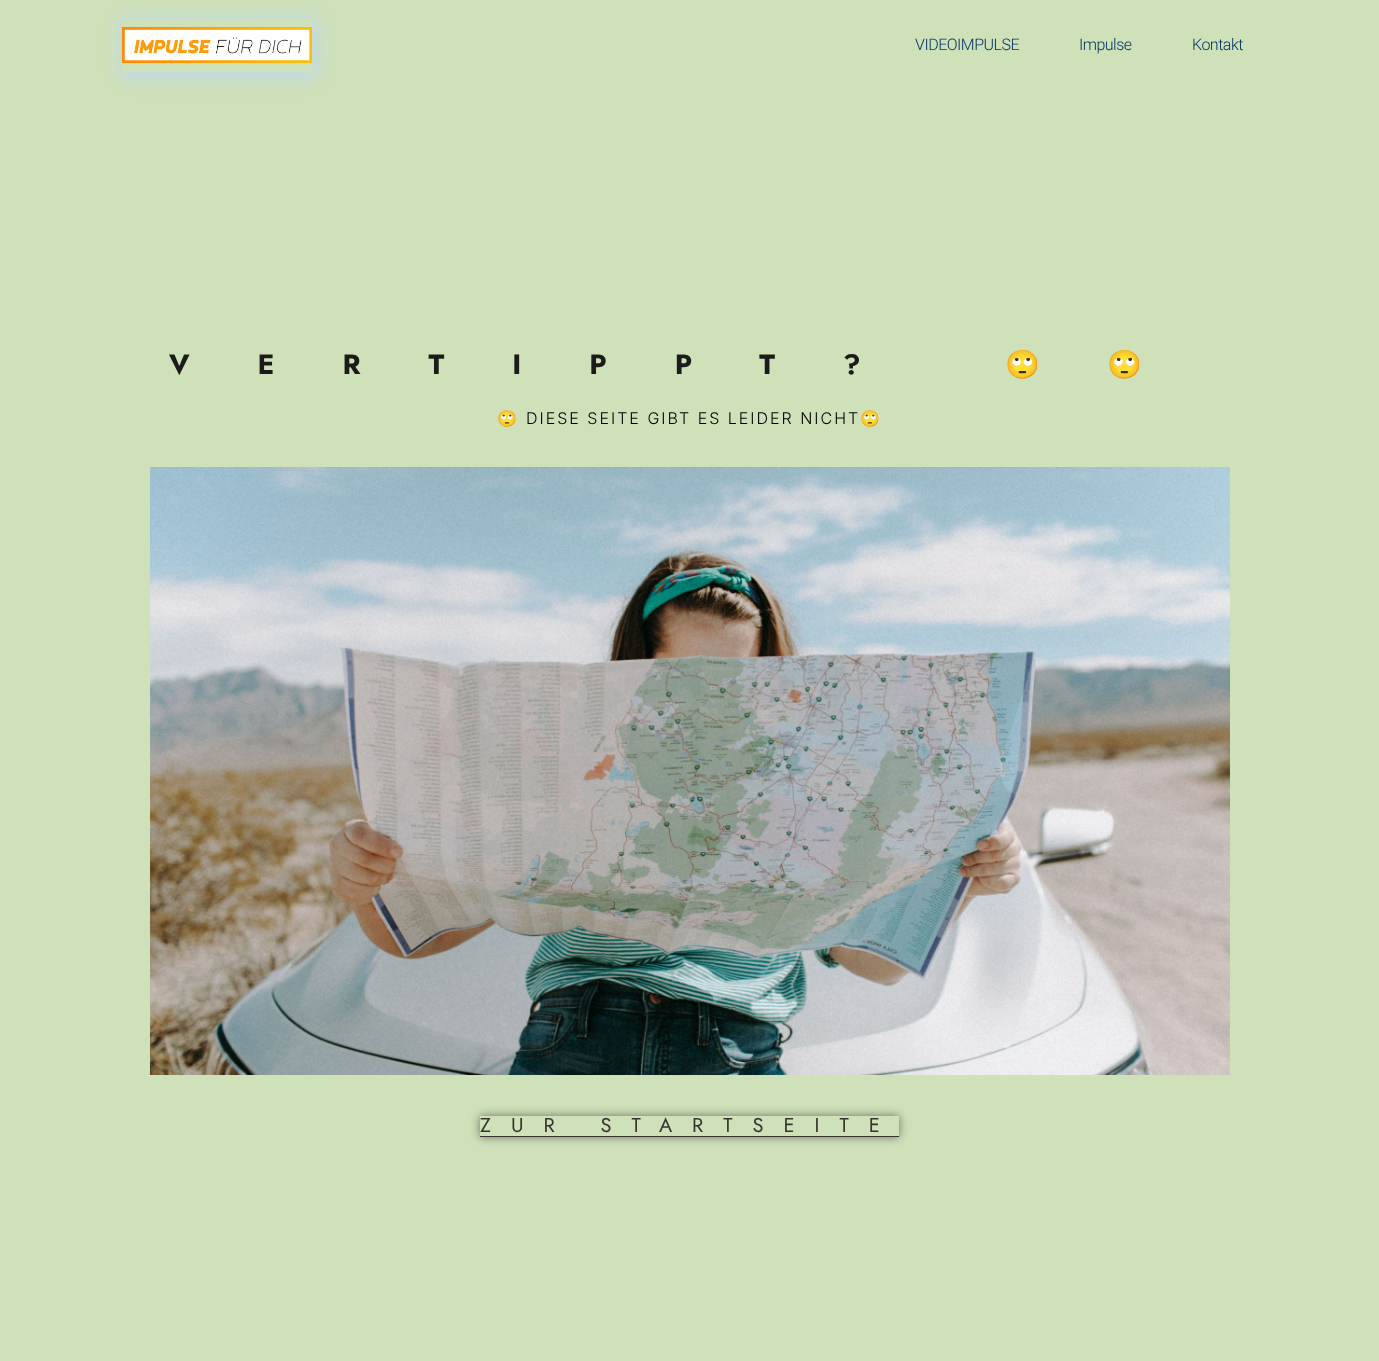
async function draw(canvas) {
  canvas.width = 1379;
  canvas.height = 1361;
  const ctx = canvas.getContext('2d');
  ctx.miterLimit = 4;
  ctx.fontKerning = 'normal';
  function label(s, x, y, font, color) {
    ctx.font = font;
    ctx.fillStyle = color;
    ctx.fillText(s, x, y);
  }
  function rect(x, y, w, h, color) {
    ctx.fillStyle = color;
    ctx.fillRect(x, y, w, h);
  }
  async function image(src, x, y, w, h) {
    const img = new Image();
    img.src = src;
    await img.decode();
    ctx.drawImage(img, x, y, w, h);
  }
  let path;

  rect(0, 0, 1379, 1361, '#cfe1b9');
  ctx.save();
  path = new Path2D('M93 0H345V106H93ZM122 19H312V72H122Z');
  ctx.clip(path, 'evenodd');
  ctx.fillStyle = '#bfd7ea';
  ctx.filter = 'blur(9px)';
  ctx.beginPath();
  ctx.rect(121, 19, 196, 59);
  ctx.fill();
  ctx.filter = 'none';
  ctx.restore();
  await image('assets/img1.png', 122, 27, 190, 36);
  ctx.letterSpacing = '-0.5px';
  label('VIDEOIMPULSE', 915, 50, '300 16px Roboto', '#036');
  label('Impulse', 1079, 50, '300 16px Roboto', '#036');
  label('Kontakt', 1192, 50, '300 16px Roboto', '#036');
  ctx.letterSpacing = '68px';
  label('VERTIPPT?', 169, 374, 'bold 28px Jost', '#1b1b1b');
  label('🙄🙄', 1005, 374, 'bold 28px Noto Color Emoji', '#1b1b1b');
  ctx.letterSpacing = '2px';
  label('🙄', 497, 424, '16px Noto Color Emoji', '#000');
  label('DIESE SEITE GIBT ES LEIDER NICHT', 526, 424, '300 16px Inter', '#000');
  label('🙄', 860, 424, '16px Noto Color Emoji', '#000');
  await image('assets/img2.png', 150, 467, 1080, 608);
  ctx.save();
  path = new Path2D('M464 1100H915V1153H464ZM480 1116H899V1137H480Z');
  ctx.clip(path, 'evenodd');
  ctx.fillStyle = '#00000080';
  ctx.filter = 'blur(5px)';
  ctx.beginPath();
  ctx.rect(480, 1116, 419, 21);
  ctx.fill();
  ctx.filter = 'none';
  ctx.restore();
  rect(480, 1136, 419, 1, '#373333');
  ctx.letterSpacing = '20px';
  label('ZUR STARTSEITE', 480, 1132, '20px Jost', '#373333');
}

draw(document.querySelector('canvas'));
